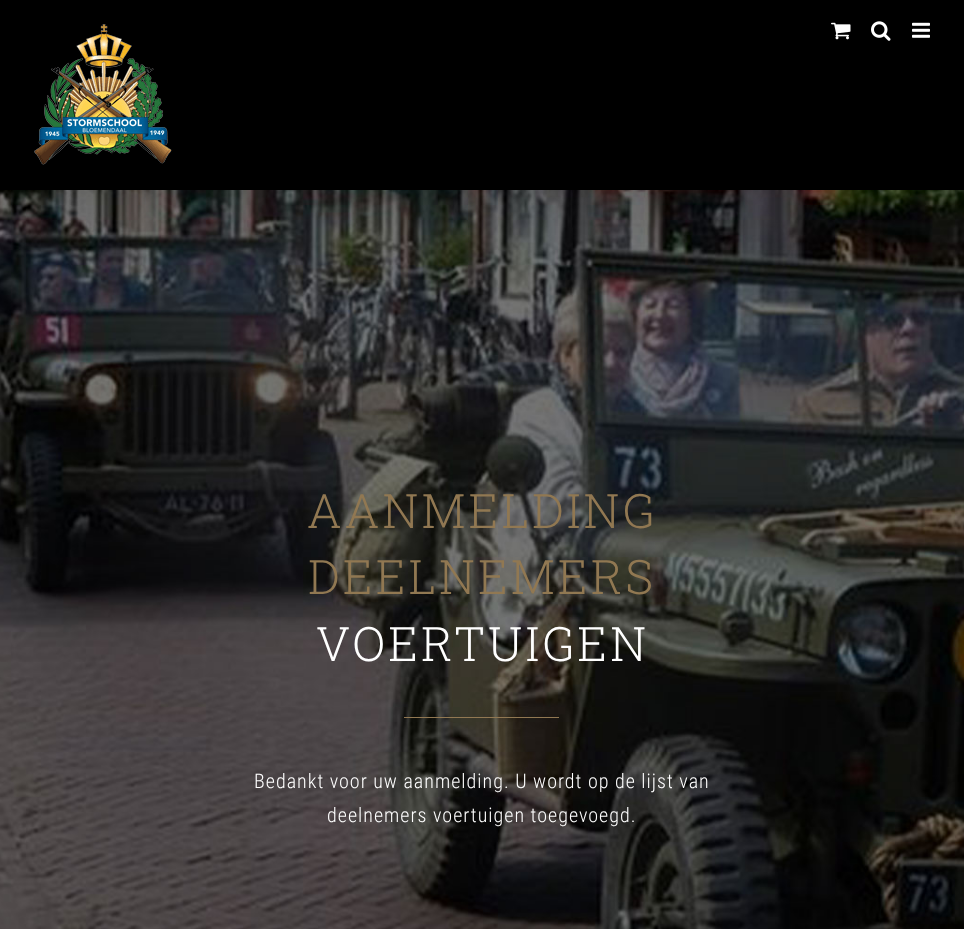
async function draw(canvas) {
  canvas.width = 964;
  canvas.height = 929;
  const ctx = canvas.getContext('2d');
  ctx.miterLimit = 4;
  ctx.fontKerning = 'normal';
  function label(s, x, y, font, color) {
    ctx.font = font;
    ctx.fillStyle = color;
    ctx.fillText(s, x, y);
  }
  function rect(x, y, w, h, color) {
    ctx.fillStyle = color;
    ctx.fillRect(x, y, w, h);
  }
  async function image(src, x, y, w, h) {
    const img = new Image();
    img.src = src;
    await img.decode();
    ctx.drawImage(img, x, y, w, h);
  }

  rect(0, 0, 964, 929, '#fff');
  await image('assets/img5.png', 0, 190, 964, 739);
  ctx.fillStyle = '#00000024';
  ctx.filter = 'blur(25px)';
  ctx.beginPath();
  ctx.rect(2, 12, 960, 186);
  ctx.fill();
  ctx.filter = 'none';
  rect(0, 0, 964, 190, '#000');
  await image('assets/img1.png', 34, 24, 138, 141);
  await image('assets/img2.png', 831, 22, 20, 18);
  await image('assets/img3.png', 871, 21, 20, 20);
  await image('assets/img4.png', 912, 22, 18, 16);
  ctx.letterSpacing = '3px';
  label('AANMELDING', 307, 528, '300 47.5px Roboto Slab', '#917852');
  label('DEELNEMERS', 308, 594, '300 47.5px Roboto Slab', '#917852');
  label('VOERTUIGEN', 316, 661, '300 47.5px Roboto Slab', '#fff');
  rect(404, 717, 155, 1, '#917852');
  ctx.letterSpacing = '1px';
  label('Bedankt voor uw aanmelding. U wordt op de lijst van', 254, 788, '300 20px Roboto Condensed', '#fff');
  label('deelnemers voertuigen toegevoegd.', 327, 822, '300 20px Roboto Condensed', '#fff');
}

draw(document.querySelector('canvas'));
